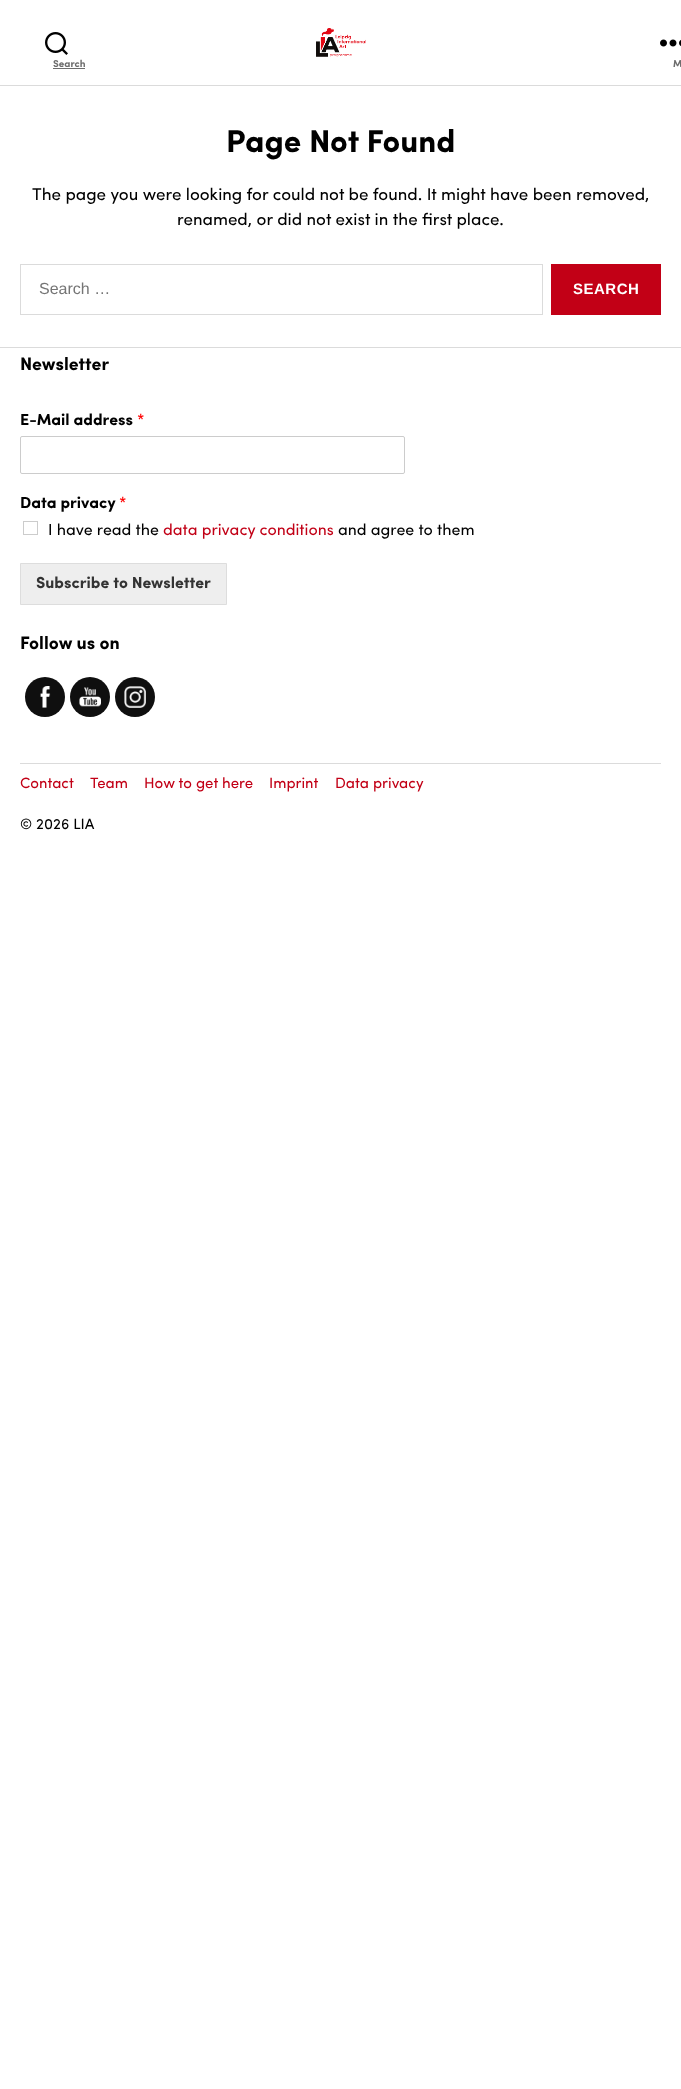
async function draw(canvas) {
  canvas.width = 681;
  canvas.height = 2089;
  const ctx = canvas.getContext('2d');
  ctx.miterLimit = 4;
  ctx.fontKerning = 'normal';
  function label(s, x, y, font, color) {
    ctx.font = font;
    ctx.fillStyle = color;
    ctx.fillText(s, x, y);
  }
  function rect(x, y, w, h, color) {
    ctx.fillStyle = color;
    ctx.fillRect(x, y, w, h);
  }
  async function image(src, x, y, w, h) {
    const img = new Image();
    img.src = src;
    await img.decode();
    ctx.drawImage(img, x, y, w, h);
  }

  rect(0, 0, 681, 2089, '#fff');
  rect(0, 85, 681, 1, '#dbdbdb');
  await image('assets/img1.png', 316, 28, 50, 29);
  await image('assets/img2.png', 45, 32, 23, 23);
  label('Search', 53, 67, 'bold 10px Sofia', '#6d6d6d');
  rect(53, 68, 32, 1, '#6d6d6d');
  await image('assets/img3.png', 660, 39, 21, 8);
  label('M', 673, 67, 'bold 10px Sofia', '#6d6d6d');
  label('Page Not Found', 226, 152, 'bold 31.75px Sofia', '#000');
  label('The page you were looking for could not be found. It might have been removed,', 32, 200, '17px Sofia', '#000');
  label('renamed, or did not exist in the first place.', 177, 225, '17px Sofia', '#000');
  ctx.strokeStyle = '#dbdbdb';
  ctx.strokeRect(20.5, 264.5, 522, 50);
  label('Search …', 39, 294, '16px Liberation Sans', '#757575');
  rect(551, 264, 110, 51, '#c20016');
  ctx.letterSpacing = '0.5px';
  label('SEARCH', 573, 294, 'bold 15px Liberation Sans', '#fff');
  rect(0, 347, 681, 1, '#dbdbdb');
  rect(20, 763, 641, 1, '#dbdbdb');
  ctx.letterSpacing = '0px';
  label('Newsletter', 20, 370, 'bold 18px Sofia', '#000');
  label('E-Mail address', 20, 425, 'bold 16px Sofia', '#000');
  label('*', 137, 425, '16px Sofia', '#f00');
  ctx.beginPath();
  ctx.roundRect(20.5, 436.5, 384, 37, 1.5);
  ctx.strokeStyle = '#ccc';
  ctx.stroke();
  label('Data privacy', 20, 508, 'bold 16px Sofia', '#000');
  label('*', 119, 508, '16px Sofia', '#f00');
  ctx.strokeRect(23.5, 521.5, 14, 13);
  label('I have read the', 48, 535, '16px Sofia', '#000');
  label('data privacy conditions', 163, 535, '16px Sofia', '#c20016');
  label('and agree to them', 338, 535, '16px Sofia', '#000');
  ctx.fillStyle = '#eee';
  ctx.beginPath();
  ctx.rect(20.5, 563.5, 206, 41);
  ctx.fill();
  ctx.strokeStyle = '#ddd';
  ctx.stroke();
  label('Subscribe to Newsletter', 36, 588, 'bold 16px Sofia', '#333');
  label('Follow us on', 20, 649, 'bold 18px Sofia', '#000');
  ctx.fillStyle = '#0f0f0f';
  ctx.beginPath();
  ctx.arc(45, 697, 20, 0, 2 * Math.PI);
  ctx.fill();
  await image('assets/img4.png', 40, 686, 11, 22);
  ctx.beginPath();
  ctx.arc(90, 697, 20, 0, 2 * Math.PI);
  ctx.fill();
  await image('assets/img5.png', 79, 687, 22, 20);
  ctx.beginPath();
  ctx.arc(135, 697, 20, 0, 2 * Math.PI);
  ctx.fill();
  await image('assets/img6.png', 124, 686, 22, 22);
  label('Contact', 20, 788, '15px Sofia', '#c20016');
  label('Team', 90, 788, '15px Sofia', '#c20016');
  label('How to get here', 144, 788, '15px Sofia', '#c20016');
  label('Imprint', 269, 788, '15px Sofia', '#c20016');
  label('Data privacy', 335, 788, '15px Sofia', '#c20016');
  label('© 2026 LIA', 20, 829, '15px Sofia', '#000');
}

draw(document.querySelector('canvas'));
